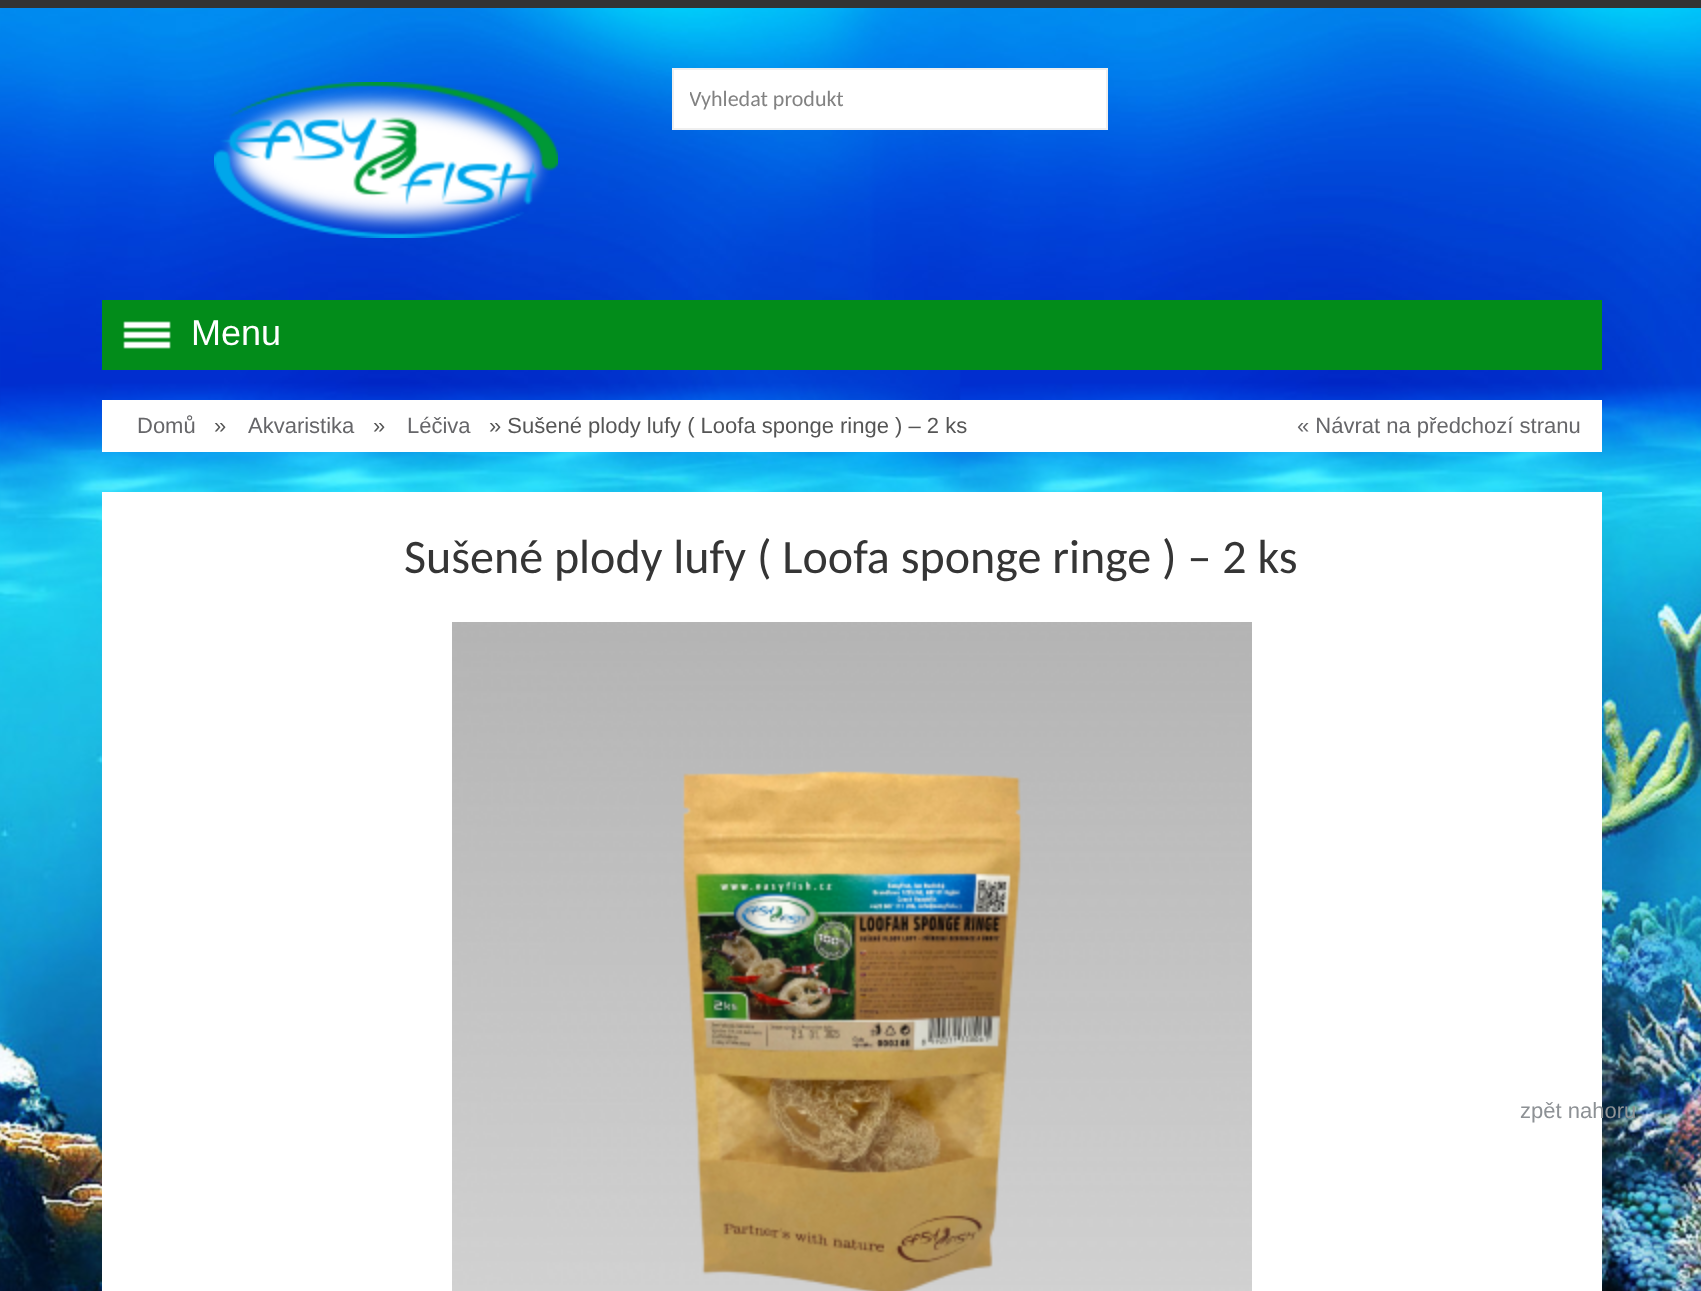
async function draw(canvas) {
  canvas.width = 1701;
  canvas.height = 1291;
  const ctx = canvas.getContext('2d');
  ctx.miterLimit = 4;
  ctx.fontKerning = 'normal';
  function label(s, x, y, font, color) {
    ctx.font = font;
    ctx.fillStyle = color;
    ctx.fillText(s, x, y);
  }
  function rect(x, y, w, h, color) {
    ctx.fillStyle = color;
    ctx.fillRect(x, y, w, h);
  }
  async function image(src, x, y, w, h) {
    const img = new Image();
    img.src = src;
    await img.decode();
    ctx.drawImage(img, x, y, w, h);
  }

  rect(0, 0, 1701, 1291, '#fff');
  await image('assets/img1.png', 0, 8, 1701, 1283);
  rect(0, 0, 1701, 8, '#333');
  await image('assets/img2.png', 214, 82, 344, 156);
  ctx.fillStyle = '#fff';
  ctx.beginPath();
  ctx.rect(673, 69, 434, 60);
  ctx.fill();
  ctx.strokeStyle = '#efefef';
  ctx.lineWidth = 2;
  ctx.stroke();
  ctx.save();
  ctx.beginPath();
  ctx.rect(690, 86, 400, 26);
  ctx.clip();
  label('Vyhledat produkt', 689, 106, '22px Carlito', '#828282');
  ctx.restore();
  rect(102, 300, 1500, 70, '#028c1a');
  await image('assets/img3.png', 123, 321, 48, 28);
  label('Menu', 191, 345, '36px Liberation Sans', '#fff');
  rect(102, 400, 1500, 52, '#fff');
  label('Domů', 137, 433, '22px Liberation Sans', '#666669');
  label('»', 214, 433, '22px Liberation Sans', '#555');
  label('Akvaristika', 248, 433, '22px Liberation Sans', '#666669');
  label('»', 373, 433, '22px Liberation Sans', '#555');
  label('Léčiva', 407, 433, '22px Liberation Sans', '#666669');
  label('» Sušené plody lufy ( Loofa sponge ringe ) – 2 ks', 489, 433, '22px Liberation Sans', '#555');
  label('« Návrat na předchozí stranu', 1297, 433, '22px Liberation Sans', '#666669');
  rect(102, 492, 1500, 799, '#fff');
  label('Sušené plody lufy ( Loofa sponge ringe ) – 2 ks', 404, 573, '48px Carlito', '#353535');
  await image('assets/img4.png', 452, 622, 800, 669);
  label('zpět nahoru', 1520, 1118, '22px Liberation Sans', '#8d9195');
}

draw(document.querySelector('canvas'));
